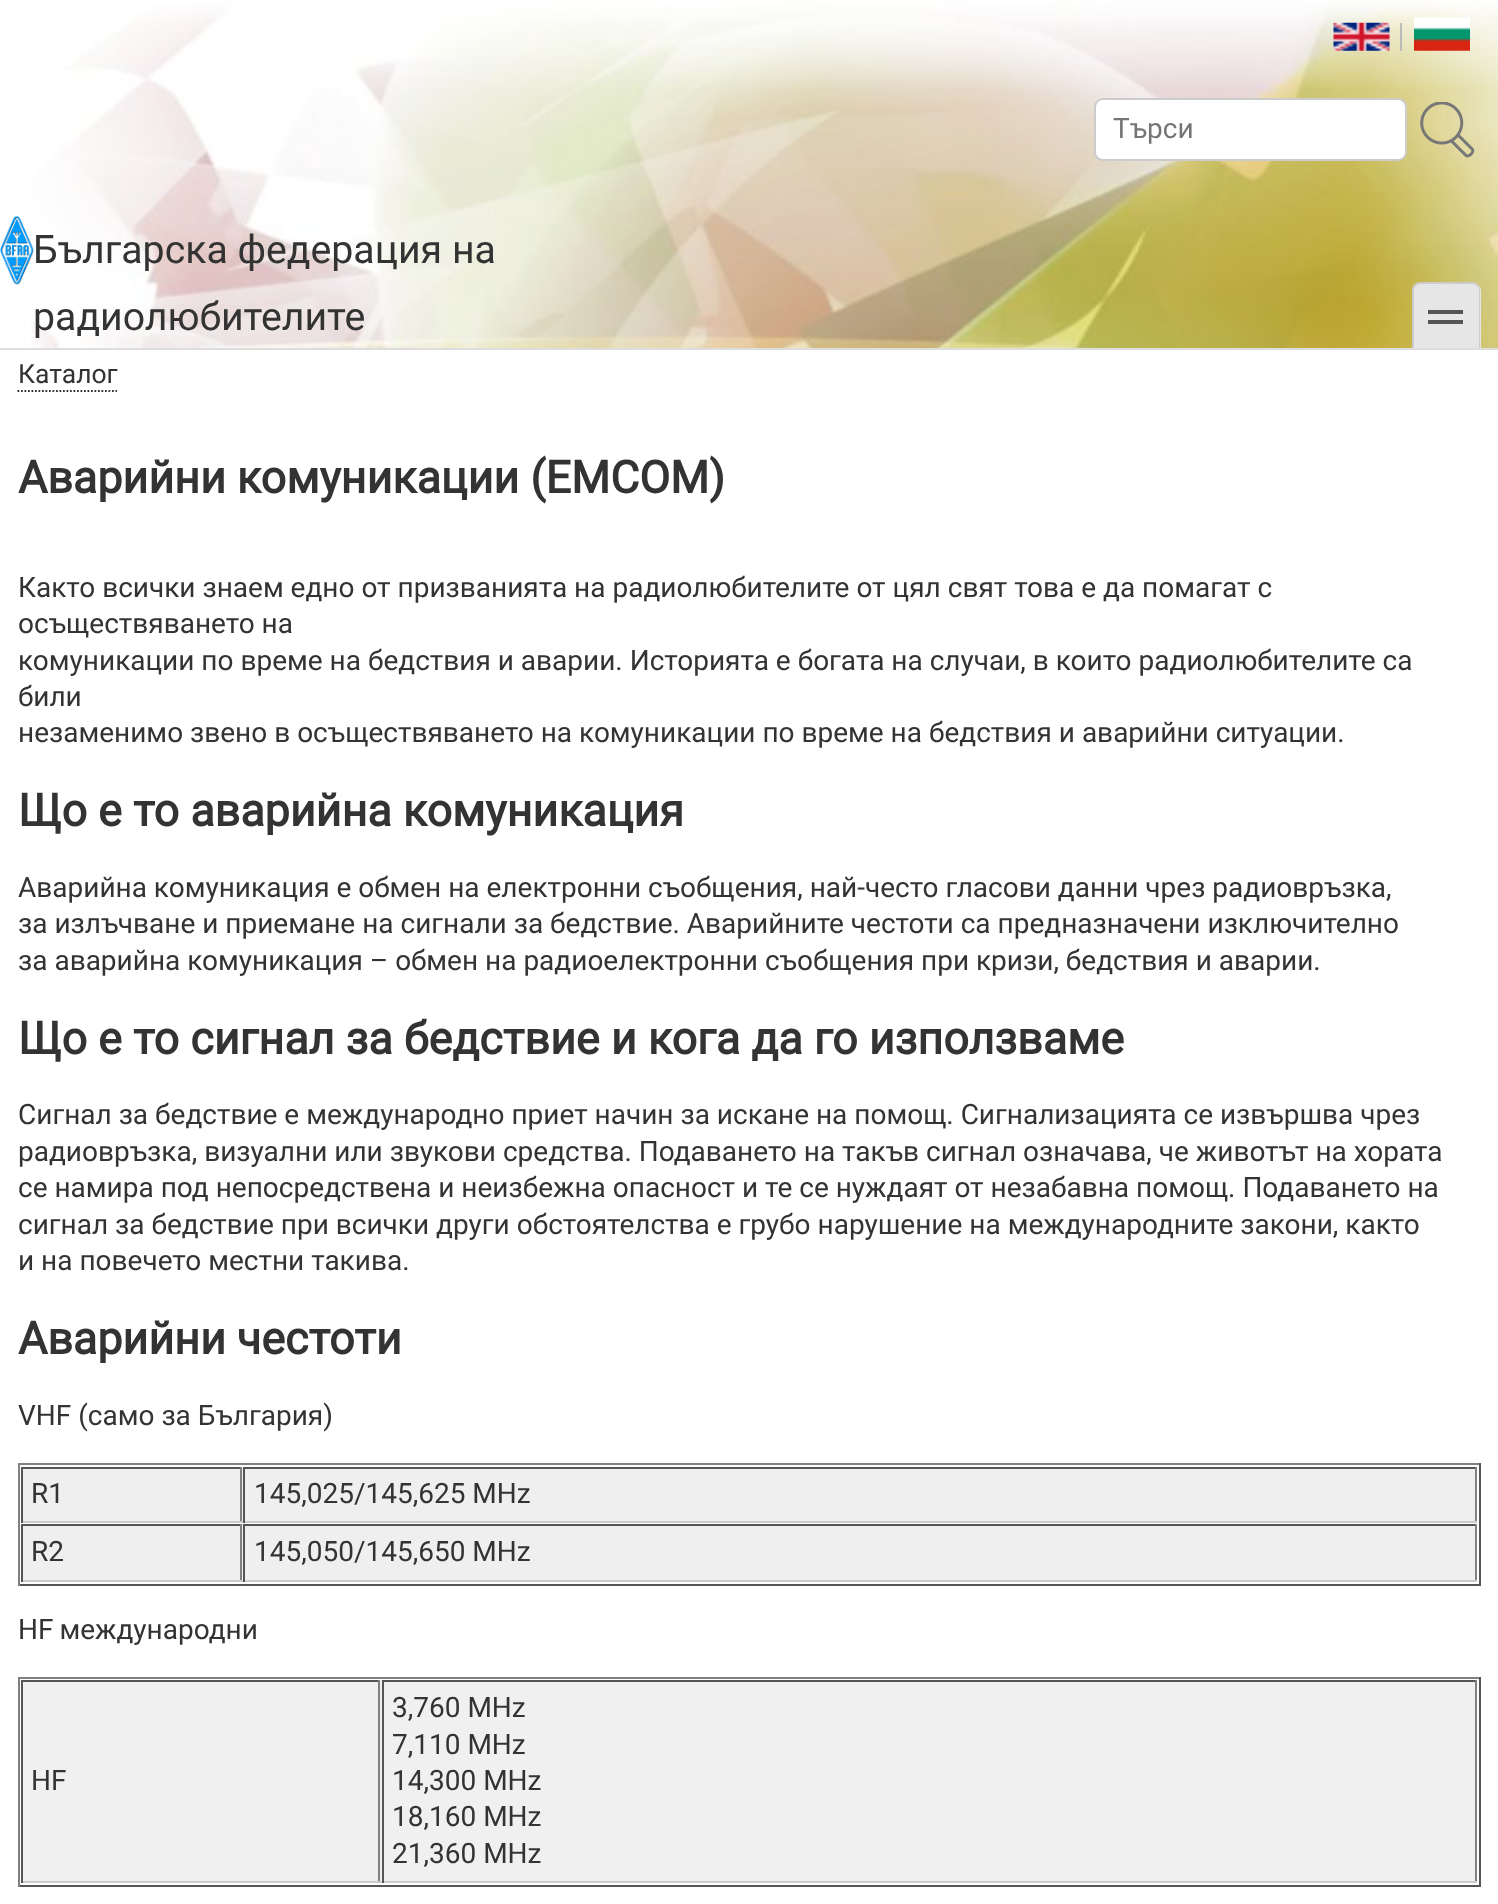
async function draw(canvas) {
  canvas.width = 1498;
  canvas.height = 1904;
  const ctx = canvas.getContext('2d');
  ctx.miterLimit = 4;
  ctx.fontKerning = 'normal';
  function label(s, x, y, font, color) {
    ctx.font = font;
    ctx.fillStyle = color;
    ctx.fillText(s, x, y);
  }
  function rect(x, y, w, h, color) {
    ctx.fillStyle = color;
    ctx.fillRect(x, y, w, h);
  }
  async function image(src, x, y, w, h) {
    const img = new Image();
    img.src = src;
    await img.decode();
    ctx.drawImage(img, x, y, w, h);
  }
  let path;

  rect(0, 0, 1498, 1904, '#fff');
  await image('assets/img1.png', 31, 0, 1467, 348);
  rect(1400, 23, 2, 28, '#bbb');
  await image('assets/img2.png', 1333, 22, 57, 29);
  await image('assets/img3.png', 1414, 17, 56, 34);
  ctx.fillStyle = '#fff';
  ctx.beginPath();
  ctx.roundRect(1095, 99, 311, 61, 8);
  ctx.fill();
  ctx.strokeStyle = '#ccc';
  ctx.lineWidth = 2;
  ctx.stroke();
  label('Търси', 1113, 138, '28px Roboto', '#757575');
  await image('assets/img4.png', 1420, 102, 55, 56);
  await image('assets/img5.png', 0, 216, 34, 69);
  label('Българска федерация на', 33, 263, '39.25px Roboto', '#333');
  label('радиолюбителите', 33, 330, '39.25px Roboto', '#333');
  rect(0, 348, 1498, 2, '#ddd');
  ctx.fillStyle = '#e6e6e6';
  ctx.beginPath();
  ctx.roundRect(1412, 282, 69, 66, [9, 9, 0, 0]);
  ctx.fill();
  ctx.fillStyle = '#ccc';
  path = new Path2D('M1421 282H1472C1477 282 1480 286 1480 290V348H1412V290C1412 286 1416 282 1421 282ZM1421 284H1472C1476 284 1479 287 1479 290V348H1414V290C1414 287 1417 284 1421 284Z');
  ctx.fill(path, 'evenodd');
  rect(1428, 310, 35, 4, '#555');
  rect(1428, 320, 35, 4, '#555');
  label('Каталог', 18, 383, '26.5px Roboto', '#333');
  path = new Path2D('M17.5 391H117');
  ctx.strokeStyle = '#333';
  ctx.lineWidth = 1.8;
  ctx.setLineDash([1.75, 1.75]);
  ctx.stroke(path);
  label('Аварийни комуникации (EMCOM)', 18, 493, 'bold 44.8px Roboto', '#333');
  label('Както всички знаем едно от призванията на радиолюбителите от цял свят това е да помагат с', 18, 597, '28px Roboto', '#333');
  label('осъществяването на', 18, 633, '28px Roboto', '#333');
  label('комуникации по време на бедствия и аварии. Историята е богата на случаи, в които радиолюбителите са', 18, 670, '28px Roboto', '#333');
  label('били', 18, 706, '28px Roboto', '#333');
  label('незаменимо звено в осъществяването на комуникации по време на бедствия и аварийни ситуации.', 18, 742, '28px Roboto', '#333');
  label('Що е то аварийна комуникация', 18, 826, 'bold 44.8px Roboto', '#333');
  label('Аварийна комуникация е обмен на електронни съобщения, най-често гласови данни чрез радиовръзка,', 18, 897, '28px Roboto', '#333');
  label('за излъчване и приемане на сигнали за бедствие. Аварийните честоти са предназначени изключително', 18, 933, '28px Roboto', '#333');
  label('за аварийна комуникация – обмен на радиоелектронни съобщения при кризи, бедствия и аварии.', 18, 970, '28px Roboto', '#333');
  label('Що е то сигнал за бедствие и кога да го използваме', 18, 1054, 'bold 44.8px Roboto', '#333');
  label('Сигнал за бедствие е международно приет начин за искане на помощ. Сигнализацията се извършва чрез', 18, 1124, '28px Roboto', '#333');
  label('радиовръзка, визуални или звукови средства. Подаването на такъв сигнал означава, че животът на хората', 18, 1161, '28px Roboto', '#333');
  label('се намира под непосредствена и неизбежна опасност и те се нуждаят от незабавна помощ. Подаването на', 18, 1197, '28px Roboto', '#333');
  label('сигнал за бедствие при всички други обстоятелства е грубо нарушение на международните закони, както', 18, 1234, '28px Roboto', '#333');
  label('и на повечето местни такива.', 18, 1270, '28px Roboto', '#333');
  label('Аварийни честоти', 18, 1354, 'bold 44.8px Roboto', '#333');
  label('VHF (само за България)', 18, 1425, '28px Roboto', '#333');
  rect(18, 1463, 1463, 2, '#808080');
  rect(1479, 1463, 2, 123, '#555');
  rect(18, 1584, 1463, 2, '#555');
  rect(18, 1463, 2, 123, '#808080');
  rect(23, 1467, 1452, 54, '#efefef');
  rect(242, 1521, 1, 2, '#ccc');
  rect(21, 1467, 221, 2, '#555');
  rect(240, 1467, 2, 56, '#808080');
  rect(21, 1521, 221, 2, '#ccc');
  rect(21, 1467, 2, 56, '#555');
  label('R1', 31, 1503, '28px Roboto', '#333');
  rect(243, 1467, 1234, 2, '#555');
  rect(1475, 1467, 2, 56, '#808080');
  rect(243, 1521, 1234, 2, '#ccc');
  rect(243, 1467, 2, 56, '#555');
  label('145,025/145,625 MHz', 254, 1503, '28px Roboto', '#333');
  rect(23, 1524, 1452, 56, '#efefef');
  rect(242, 1580, 1, 2, '#ccc');
  rect(21, 1524, 221, 2, '#555');
  rect(240, 1524, 2, 58, '#808080');
  rect(21, 1580, 221, 2, '#ccc');
  rect(21, 1524, 2, 58, '#555');
  label('R2', 31, 1561, '28px Roboto', '#333');
  rect(243, 1524, 1234, 2, '#555');
  rect(1475, 1524, 2, 58, '#808080');
  rect(243, 1580, 1234, 2, '#ccc');
  rect(243, 1524, 2, 58, '#555');
  label('145,050/145,650 MHz', 254, 1561, '28px Roboto', '#333');
  ctx.wordSpacing = '-1px';
  label('HF международни', 18, 1639, '28px Roboto', '#333');
  rect(18, 1677, 1463, 2, '#808080');
  rect(1479, 1677, 2, 210, '#555');
  rect(18, 1885, 1463, 2, '#555');
  rect(18, 1677, 2, 210, '#808080');
  rect(23, 1680, 1452, 201, '#f0f0f0');
  rect(380, 1881, 2, 2, '#ccc');
  rect(21, 1680, 359, 2, '#555');
  rect(378, 1680, 2, 203, '#808080');
  rect(21, 1881, 359, 2, '#ccc');
  rect(21, 1680, 2, 203, '#555');
  ctx.wordSpacing = '0px';
  label('HF', 31, 1790, '28px Roboto', '#333');
  rect(382, 1680, 1095, 2, '#555');
  rect(1475, 1680, 2, 203, '#808080');
  rect(382, 1881, 1095, 2, '#ccc');
  rect(382, 1680, 2, 203, '#555');
  label('3,760 MHz', 392, 1717, '28px Roboto', '#333');
  label('7,110 MHz', 392, 1754, '28px Roboto', '#333');
  label('14,300 MHz', 392, 1790, '28px Roboto', '#333');
  label('18,160 MHz', 392, 1826, '28px Roboto', '#333');
  label('21,360 MHz', 392, 1863, '28px Roboto', '#333');
}

draw(document.querySelector('canvas'));
